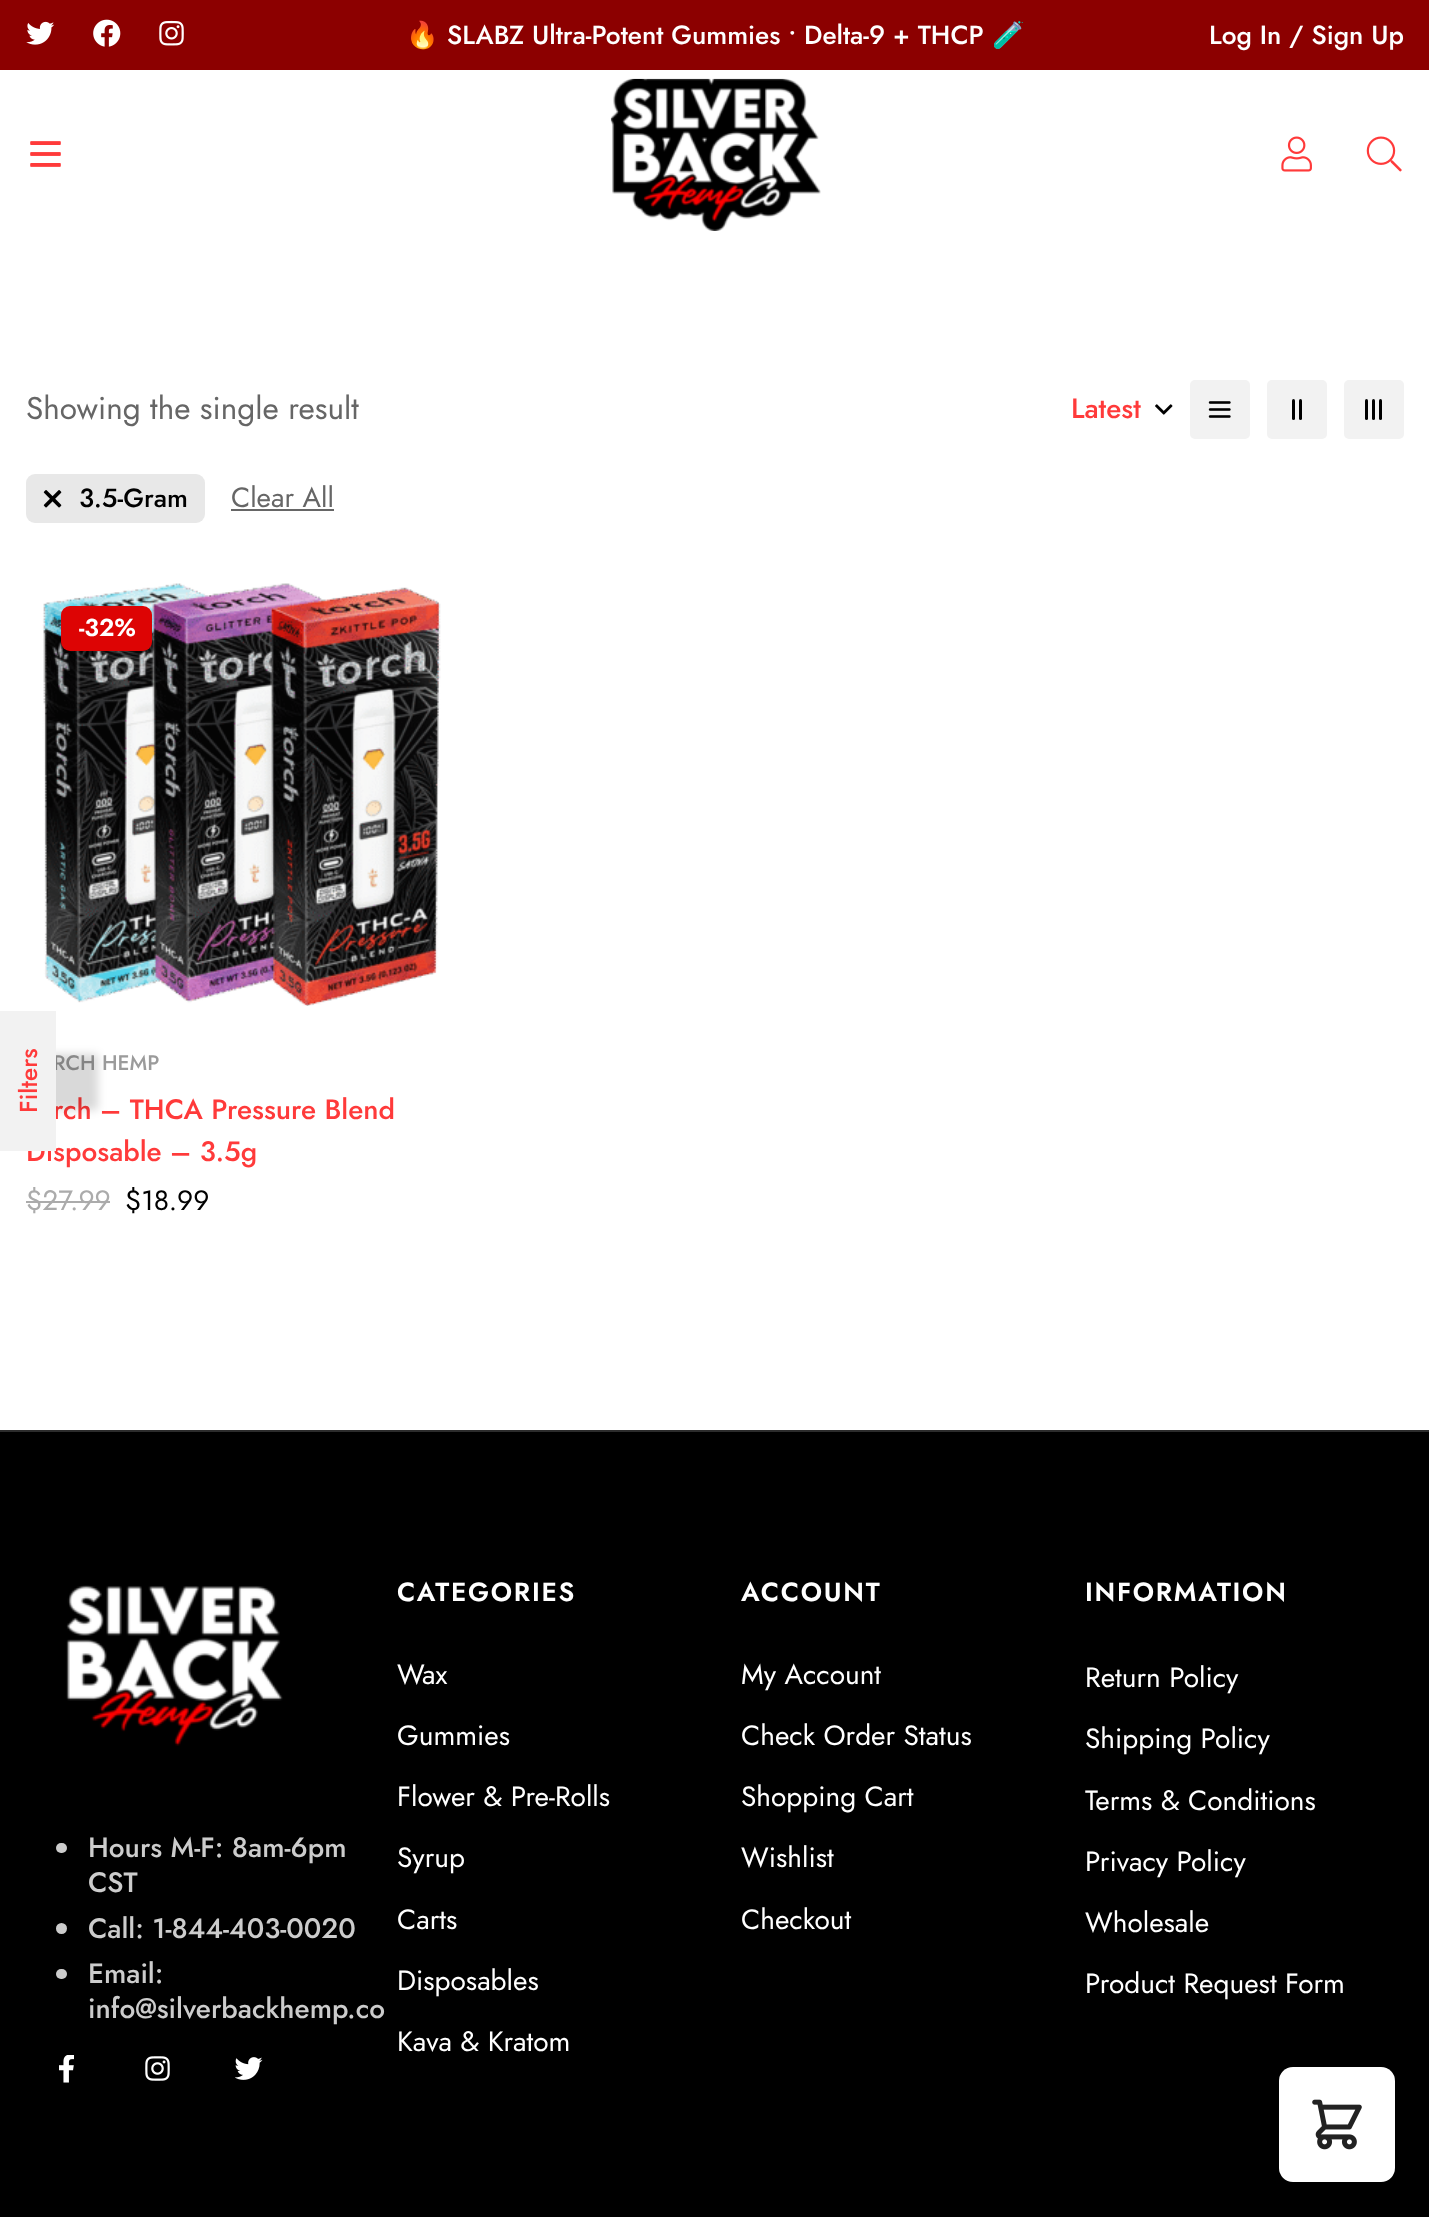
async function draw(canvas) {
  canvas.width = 1429;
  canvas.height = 2217;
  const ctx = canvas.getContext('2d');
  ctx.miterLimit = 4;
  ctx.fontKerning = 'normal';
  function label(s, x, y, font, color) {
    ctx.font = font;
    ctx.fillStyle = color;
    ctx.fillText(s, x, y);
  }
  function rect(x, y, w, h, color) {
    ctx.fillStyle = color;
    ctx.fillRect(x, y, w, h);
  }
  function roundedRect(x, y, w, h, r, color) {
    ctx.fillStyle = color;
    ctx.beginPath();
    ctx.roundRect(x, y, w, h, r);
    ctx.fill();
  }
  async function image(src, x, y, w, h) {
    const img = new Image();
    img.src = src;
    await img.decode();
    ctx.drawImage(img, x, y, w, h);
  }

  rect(0, 0, 1429, 2217, '#fff');
  rect(0, 0, 1429, 70, '#8c0000');
  await image('assets/img1.png', 26, 21, 29, 24);
  await image('assets/img2.png', 93, 19, 28, 28);
  await image('assets/img3.png', 159, 20, 25, 26);
  label('🔥', 406, 44, '26.25px Noto Color Emoji', '#fff');
  label('SLABZ Ultra-Potent Gummies • Delta-9 + THCP', 447, 44, '500 26.25px Jost', '#fff');
  label('🧪', 992, 44, '26.25px Noto Color Emoji', '#fff');
  label('Log In / Sign Up', 1209, 44, '500 26.25px Jost', '#fff');
  await image('assets/img4.png', 30, 141, 31, 26);
  await image('assets/img5.png', 610, 78, 211, 153);
  await image('assets/img6.png', 1281, 136, 31, 36);
  await image('assets/img7.png', 1366, 136, 36, 36);
  label('Showing the single result', 26, 419, '31.5px Jost', '#666');
  await image('assets/img8.png', 1155, 404, 18, 11);
  label('Latest', 1071, 418, '500 28px Jost', '#ff3a3a');
  roundedRect(1190, 380, 60, 59, 5, '#f2f2f2');
  await image('assets/img9.png', 1208, 401, 23, 17);
  roundedRect(1267, 380, 60, 59, 5, '#f2f2f2');
  roundedRect(1292, 399, 3, 21, 1.5, '#000');
  roundedRect(1299, 399, 3, 21, 1.5, '#000');
  roundedRect(1344, 380, 60, 59, 5, '#f2f2f2');
  roundedRect(1365, 399, 3, 21, 1.5, '#000');
  roundedRect(1372, 399, 3, 21, 1.5, '#000');
  roundedRect(1379, 399, 3, 21, 1.5, '#000');
  roundedRect(26, 474, 179, 49, 9, '#e8e8e8');
  await image('assets/img10.png', 43, 490, 19, 18);
  label('3.5-Gram', 79, 507, '500 26.25px Jost', '#000');
  label('Clear All', 231, 507, '28px Jost', '#666');
  rect(231, 509, 103, 2, '#666');
  await image('assets/img11.png', 42, 583, 399, 423);
  roundedRect(61, 606, 91, 45, 9, '#dd0404');
  label('-32%', 79, 636, '600 24.5px Jost', '#fff');
  label('RCH HEMP', 53, 1070, '500 21px Jost', '#9b9b9b');
  label('rch – THCA Pressure Blend', 53, 1119, '500 28px Jost', '#ff3a3a');
  label('Disposable – 3.5g', 26, 1161, '500 28px Jost', '#ff3a3a');
  label('$27.99', 26, 1210, '28px Jost', '#ababab');
  rect(26, 1201, 84, 2, '#ababab');
  label('$18.99', 125, 1210, '28px Jost', '#000');
  ctx.fillStyle = '#00000026';
  ctx.filter = 'blur(4.5px)';
  ctx.beginPath();
  ctx.rect(-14, 1054, 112, 56);
  ctx.fill();
  ctx.filter = 'none';
  rect(0, 1011, 56, 140, '#f2f2f2');
  ctx.font = '500 24.5px Jost';
  ctx.fillStyle = '#ff3a3a';
  ctx.save();
  ctx.translate(37, 1113);
  ctx.rotate(-90 * Math.PI / 180);
  ctx.fillText('Filters', 0, 0);
  ctx.restore();
  rect(0, 1432, 1429, 785, '#000');
  rect(0, 1430, 1429, 2, '#2c2c2c');
  await image('assets/img12.png', 66, 1585, 217, 161);
  roundedRect(56, 1843, 11, 10, 5, '#ccc');
  label('Hours M-F: 8am-6pm', 88, 1857, '500 28px Jost', '#ccc');
  label('CST', 88, 1892, '500 28px Jost', '#ccc');
  ctx.beginPath();
  ctx.arc(61.5, 1928.5, 5.5, 0, 2 * Math.PI);
  ctx.fill();
  label('Call: 1-844-403-0020', 88, 1938, '500 28px Jost', '#ccc');
  roundedRect(56, 1969, 11, 10, 5, '#ccc');
  label('Email:', 88, 1983, '500 28px Jost', '#ccc');
  label('info@silverbackhemp.co', 88, 2018, '500 28px Jost', '#ccc');
  await image('assets/img13.png', 59, 2055, 15, 28);
  await image('assets/img14.png', 145, 2056, 25, 25);
  await image('assets/img15.png', 235, 2057, 28, 23);
  ctx.letterSpacing = '1.75px';
  label('CATEGORIES', 397, 1601, '600 26.25px Jost', '#fff');
  ctx.letterSpacing = '0px';
  label('Wax', 397, 1684, '28px Jost', '#fff');
  label('Gummies', 397, 1745, '28px Jost', '#fff');
  label('Flower & Pre-Rolls', 397, 1806, '28px Jost', '#fff');
  label('Syrup', 397, 1867, '28px Jost', '#fff');
  label('Carts', 397, 1929, '28px Jost', '#fff');
  label('Disposables', 397, 1990, '28px Jost', '#fff');
  label('Kava & Kratom', 397, 2051, '28px Jost', '#fff');
  ctx.letterSpacing = '1.75px';
  label('ACCOUNT', 741, 1601, '600 26.25px Jost', '#fff');
  ctx.letterSpacing = '0px';
  label('My Account', 741, 1684, '28px Jost', '#fff');
  label('Check Order Status', 741, 1745, '28px Jost', '#fff');
  label('Shopping Cart', 741, 1806, '28px Jost', '#fff');
  label('Wishlist', 741, 1867, '28px Jost', '#fff');
  label('Checkout', 741, 1929, '28px Jost', '#fff');
  ctx.letterSpacing = '1.75px';
  label('INFORMATION', 1085, 1601, '600 26.25px Jost', '#fff');
  ctx.letterSpacing = '0px';
  label('Return Policy', 1085, 1687, '28px Jost', '#fff');
  label('Shipping Policy', 1085, 1748, '28px Jost', '#fff');
  label('Terms & Conditions', 1085, 1810, '28px Jost', '#fff');
  label('Privacy Policy', 1085, 1871, '28px Jost', '#fff');
  label('Wholesale', 1085, 1932, '28px Jost', '#fff');
  label('Product Request Form', 1085, 1993, '28px Jost', '#fff');
  roundedRect(1279, 2067, 116, 115, 14, '#fff');
  await image('assets/img16.png', 1312, 2099, 50, 51);
}

draw(document.querySelector('canvas'));
